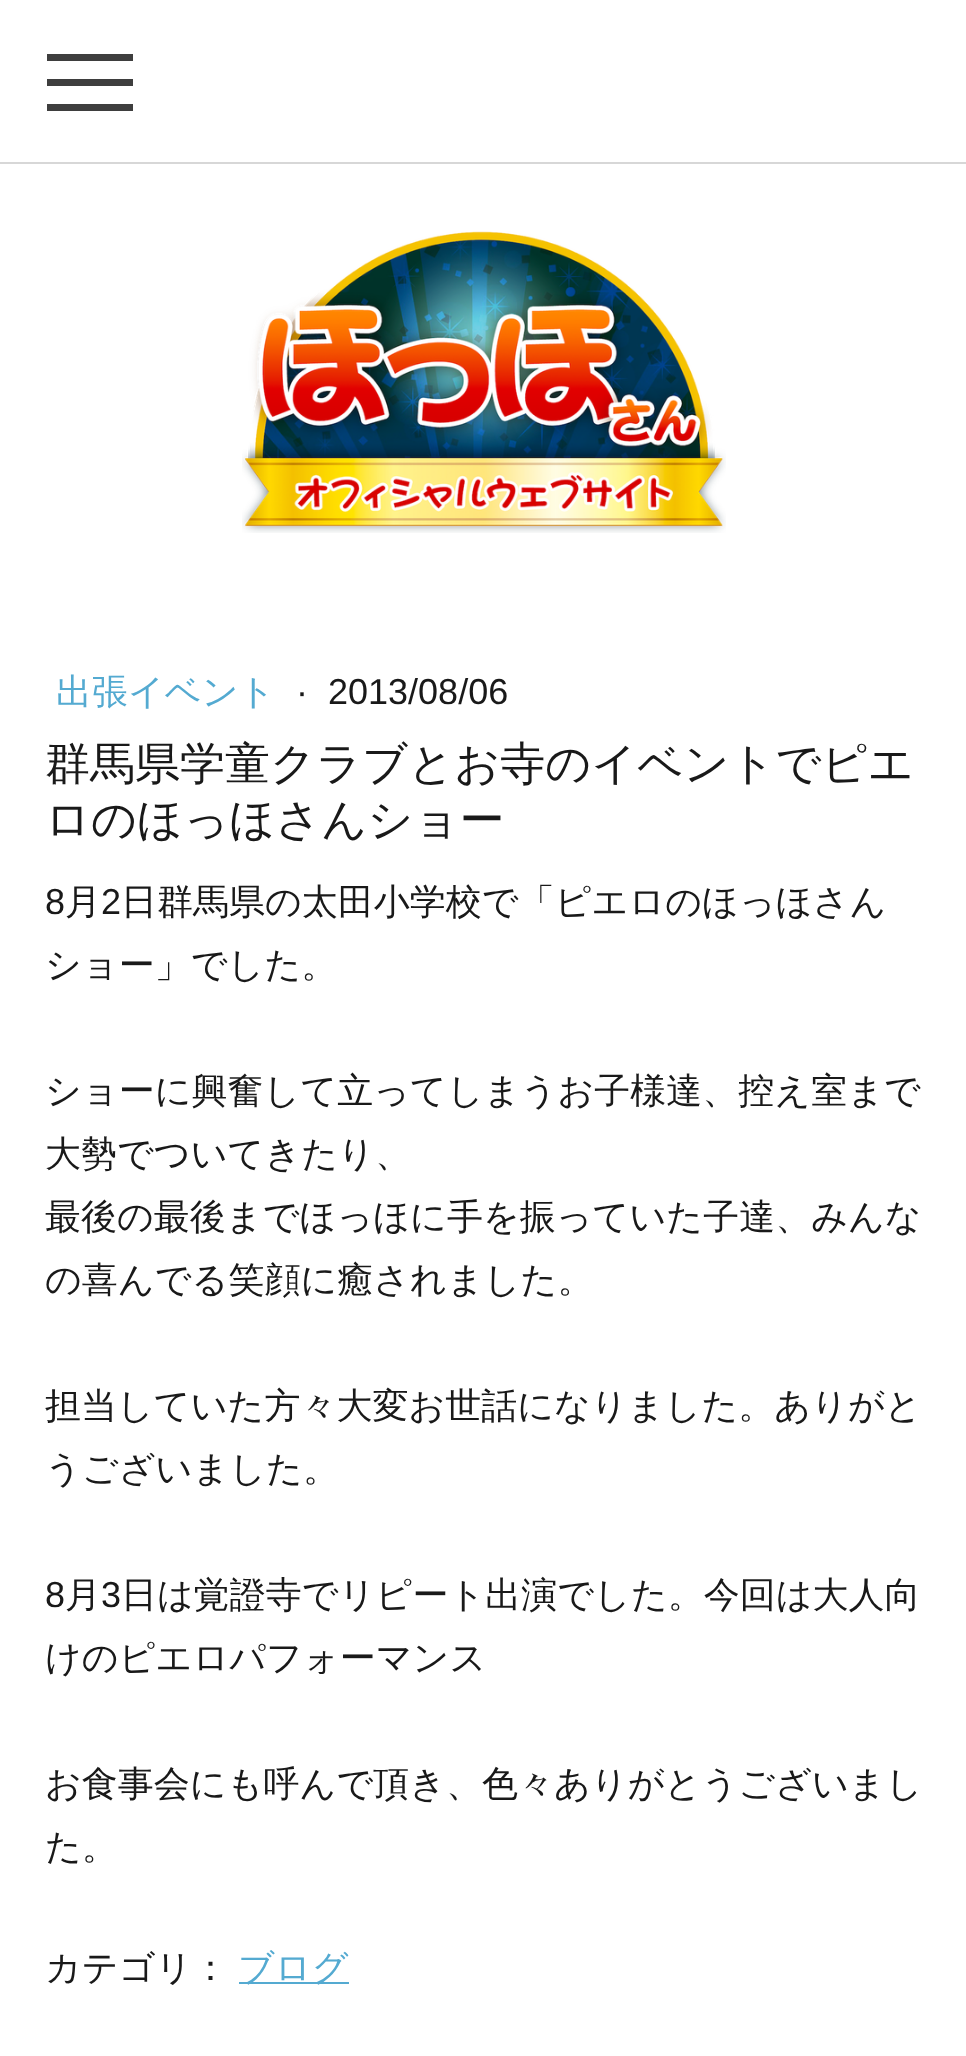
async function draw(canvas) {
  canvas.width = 966;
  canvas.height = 2056;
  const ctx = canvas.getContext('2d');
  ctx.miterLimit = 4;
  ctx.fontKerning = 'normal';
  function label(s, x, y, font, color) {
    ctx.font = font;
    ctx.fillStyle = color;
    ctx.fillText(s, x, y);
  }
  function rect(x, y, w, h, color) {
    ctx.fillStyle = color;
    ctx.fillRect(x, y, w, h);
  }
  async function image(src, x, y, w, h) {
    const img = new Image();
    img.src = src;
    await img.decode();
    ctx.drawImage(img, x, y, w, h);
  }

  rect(0, 0, 966, 2056, '#fff');
  rect(0, 162, 966, 2, '#d7d7d7');
  rect(47, 79, 86, 7, '#3e3e3e');
  rect(47, 54, 86, 7, '#3e3e3e');
  rect(47, 104, 86, 7, '#3e3e3e');
  await image('assets/img1.png', 242, 231, 484, 302);
  label('出張イベント', 56, 704, '500 36px WenQuanYi Zen Hei', '#54aad1');
  label('·', 296, 704, '36px Liberation Sans', '#191919');
  label('2013/08/06', 328, 704, '36px Liberation Sans', '#191919');
  label('群馬県学童クラブとお寺のイベントでピエ', 45, 779, '500 45px WenQuanYi Zen Hei', '#191919');
  label('ロのほっほさんショー', 45, 835, '500 45px WenQuanYi Zen Hei', '#191919');
  label('8', 45, 914, '36px Liberation Sans', '#191919');
  label('月', 65, 914, '500 36px WenQuanYi Zen Hei', '#191919');
  label('2', 101, 914, '36px Liberation Sans', '#191919');
  label('日群馬県の太田小学校で「ピエロのほっほさん', 121, 914, '500 36px WenQuanYi Zen Hei', '#191919');
  label('ショー」でした。', 45, 977, '500 36px WenQuanYi Zen Hei', '#191919');
  label('ショーに興奮して立ってしまうお子様達、控え室まで', 45, 1103, '500 36px WenQuanYi Zen Hei', '#191919');
  label('大勢でついてきたり、', 45, 1166, '500 36px WenQuanYi Zen Hei', '#191919');
  label('最後の最後までほっほに手を振っていた子達、みんな', 45, 1229, '500 36px WenQuanYi Zen Hei', '#191919');
  label('の喜んでる笑顔に癒されました。', 45, 1292, '500 36px WenQuanYi Zen Hei', '#191919');
  label('担当していた方々大変お世話になりました。ありがと', 45, 1418, '500 36px WenQuanYi Zen Hei', '#191919');
  label('うございました。', 45, 1481, '500 36px WenQuanYi Zen Hei', '#191919');
  label('8', 45, 1607, '36px Liberation Sans', '#191919');
  label('月', 65, 1607, '500 36px WenQuanYi Zen Hei', '#191919');
  label('3', 101, 1607, '36px Liberation Sans', '#191919');
  label('日は覚證寺でリピート出演でした。今回は大人向', 121, 1607, '500 36px WenQuanYi Zen Hei', '#191919');
  label('けのピエロパフォーマンス', 45, 1670, '500 36px WenQuanYi Zen Hei', '#191919');
  label('お食事会にも呼んで頂き、色々ありがとうございまし', 45, 1796, '500 36px WenQuanYi Zen Hei', '#191919');
  label('た。', 45, 1859, '500 36px WenQuanYi Zen Hei', '#191919');
  label('カテゴリ：', 45, 1980, '500 36px WenQuanYi Zen Hei', '#191919');
  rect(239, 1982, 110, 2, '#54aad1');
  label('ブログ', 238, 1980, '500 36px WenQuanYi Zen Hei', '#54aad1');
}

draw(document.querySelector('canvas'));
